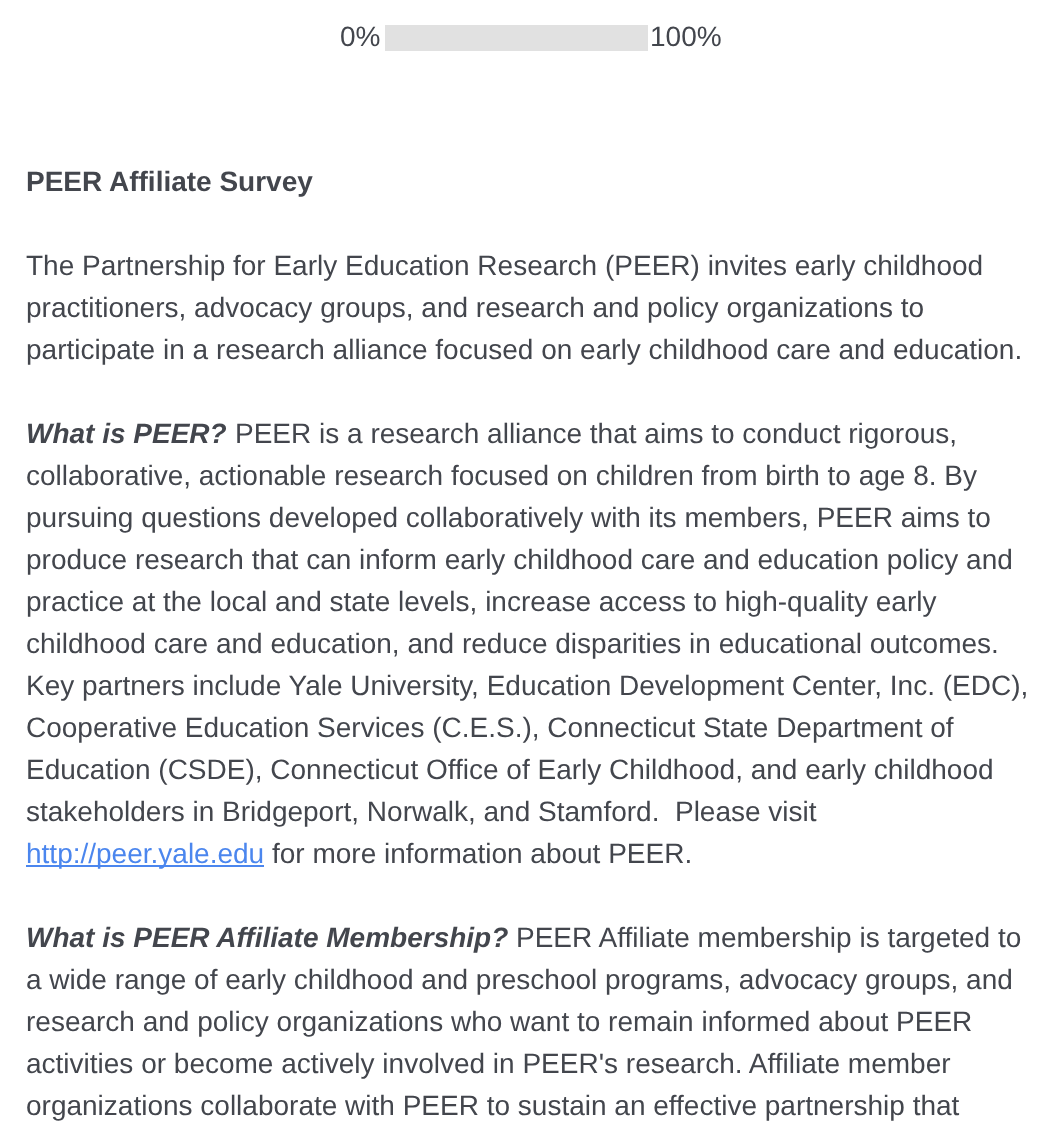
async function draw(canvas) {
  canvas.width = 1061;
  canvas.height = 1134;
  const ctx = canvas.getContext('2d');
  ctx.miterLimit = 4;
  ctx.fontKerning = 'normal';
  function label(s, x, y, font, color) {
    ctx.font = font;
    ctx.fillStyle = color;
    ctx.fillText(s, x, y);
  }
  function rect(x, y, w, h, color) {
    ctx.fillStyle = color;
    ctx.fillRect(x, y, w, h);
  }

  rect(0, 0, 1061, 1134, '#fff');
  label('0%', 340, 46, '28px Liberation Sans', '#43464d');
  rect(385, 25, 263, 26, '#e1e1e1');
  label('100%', 650, 46, '28px Liberation Sans', '#43464d');
  label('PEER Affiliate Survey', 26, 191, 'bold 28px Liberation Sans', '#43464d');
  label('The Partnership for Early Education Research (PEER) invites early childhood', 26, 275, '28px Liberation Sans', '#43464d');
  label('practitioners, advocacy groups, and research and policy organizations to', 26, 317, '28px Liberation Sans', '#43464d');
  label('participate in a research alliance focused on early childhood care and education.', 26, 359, '28px Liberation Sans', '#43464d');
  label('What is PEER?', 26, 443, 'italic bold 28px Liberation Sans', '#43464d');
  label('PEER is a research alliance that aims to conduct rigorous,', 235, 443, '28px Liberation Sans', '#43464d');
  label('collaborative, actionable research focused on children from birth to age 8. By', 26, 485, '28px Liberation Sans', '#43464d');
  label('pursuing questions developed collaboratively with its members, PEER aims to', 26, 527, '28px Liberation Sans', '#43464d');
  label('produce research that can inform early childhood care and education policy and', 26, 569, '28px Liberation Sans', '#43464d');
  label('practice at the local and state levels, increase access to high-quality early', 26, 611, '28px Liberation Sans', '#43464d');
  label('childhood care and education, and reduce disparities in educational outcomes.', 26, 653, '28px Liberation Sans', '#43464d');
  label('Key partners include Yale University, Education Development Center, Inc. (EDC),', 26, 695, '28px Liberation Sans', '#43464d');
  label('Cooperative Education Services (C.E.S.), Connecticut State Department of', 26, 737, '28px Liberation Sans', '#43464d');
  label('Education (CSDE), Connecticut Office of Early Childhood, and early childhood', 26, 779, '28px Liberation Sans', '#43464d');
  label('stakeholders in Bridgeport, Norwalk, and Stamford.  Please visit', 26, 821, '28px Liberation Sans', '#43464d');
  rect(26, 865, 238, 2, '#4b86ee');
  label('http://peer.yale.edu', 26, 863, '28px Liberation Sans', '#4b86ee');
  label('for more information about PEER.', 272, 863, '28px Liberation Sans', '#43464d');
  label('What is PEER Affiliate Membership?', 26, 947, 'italic bold 28px Liberation Sans', '#43464d');
  label('PEER Affiliate membership is targeted to', 516, 947, '28px Liberation Sans', '#43464d');
  label('a wide range of early childhood and preschool programs, advocacy groups, and', 26, 989, '28px Liberation Sans', '#43464d');
  label('research and policy organizations who want to remain informed about PEER', 26, 1031, '28px Liberation Sans', '#43464d');
  label('activities or become actively involved in PEER\'s research. Affiliate member', 26, 1073, '28px Liberation Sans', '#43464d');
  label('organizations collaborate with PEER to sustain an effective partnership that', 26, 1115, '28px Liberation Sans', '#43464d');
}

draw(document.querySelector('canvas'));
